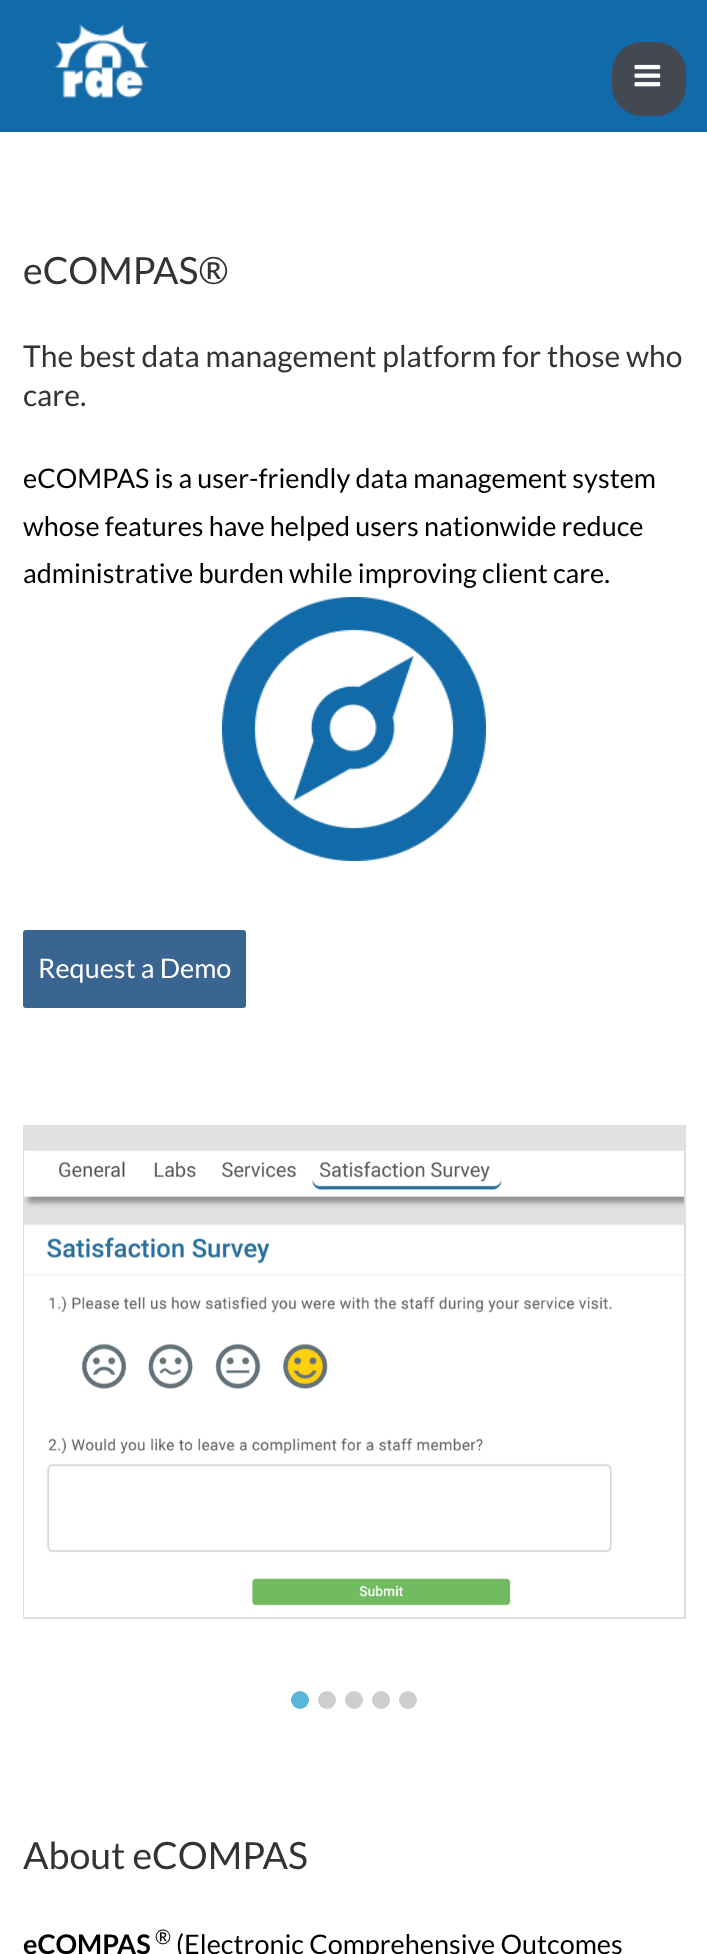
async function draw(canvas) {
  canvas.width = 707;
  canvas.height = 1954;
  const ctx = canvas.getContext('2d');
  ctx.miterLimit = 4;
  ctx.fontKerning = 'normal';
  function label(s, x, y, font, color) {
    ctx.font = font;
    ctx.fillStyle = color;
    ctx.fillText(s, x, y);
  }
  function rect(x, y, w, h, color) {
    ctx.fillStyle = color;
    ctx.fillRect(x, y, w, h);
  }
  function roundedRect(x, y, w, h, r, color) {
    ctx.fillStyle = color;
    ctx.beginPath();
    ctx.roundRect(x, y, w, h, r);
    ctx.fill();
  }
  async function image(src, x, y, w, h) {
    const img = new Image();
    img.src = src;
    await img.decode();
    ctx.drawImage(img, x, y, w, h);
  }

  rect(0, 0, 707, 1954, '#fff');
  rect(0, 0, 707, 132, '#136aa9');
  await image('assets/img1.png', 54, 24, 96, 74);
  roundedRect(612, 42, 74, 74, 30, '#434852');
  await image('assets/img2.png', 634, 64, 27, 23);
  label('eCOMPAS®', 23, 284, '37.5px Lato', '#333');
  label('The best data management platform for those who', 23, 367, '30px Lato', '#333');
  label('care.', 23, 406, '30px Lato', '#333');
  label('eCOMPAS is a user-friendly data management system', 23, 488, '27px Lato', '#000');
  label('whose features have helped users nationwide reduce', 23, 536, '27px Lato', '#000');
  label('administrative burden while improving client care.', 23, 583, '27px Lato', '#000');
  await image('assets/img3.png', 222, 597, 264, 264);
  roundedRect(23, 930, 223, 78, 3, '#3a6591');
  label('Request a Demo', 38, 978, '27px Lato', '#fff');
  ctx.strokeStyle = '#dedede';
  ctx.lineWidth = 2;
  ctx.strokeRect(24, 1126, 661, 492);
  await image('assets/img4.png', 24, 1127, 660, 490);
  ctx.fillStyle = '#58b6da';
  ctx.beginPath();
  ctx.arc(300, 1700, 9, 0, 2 * Math.PI);
  ctx.fill();
  ctx.fillStyle = '#cecece';
  ctx.beginPath();
  ctx.arc(327, 1700, 9, 0, 2 * Math.PI);
  ctx.fill();
  ctx.beginPath();
  ctx.arc(354, 1700, 9, 0, 2 * Math.PI);
  ctx.fill();
  ctx.beginPath();
  ctx.arc(381, 1700, 9, 0, 2 * Math.PI);
  ctx.fill();
  ctx.beginPath();
  ctx.arc(408, 1700, 9, 0, 2 * Math.PI);
  ctx.fill();
  label('About eCOMPAS', 23, 1869, '37.5px Lato', '#333');
  label('eCOMPAS', 23, 1954, 'bold 27px Lato', '#000');
  label('®', 155, 1944, '20px Lato', '#000');
  label('(Electronic Comprehensive Outcomes', 176, 1954, '27px Lato', '#000');
}

draw(document.querySelector('canvas'));
